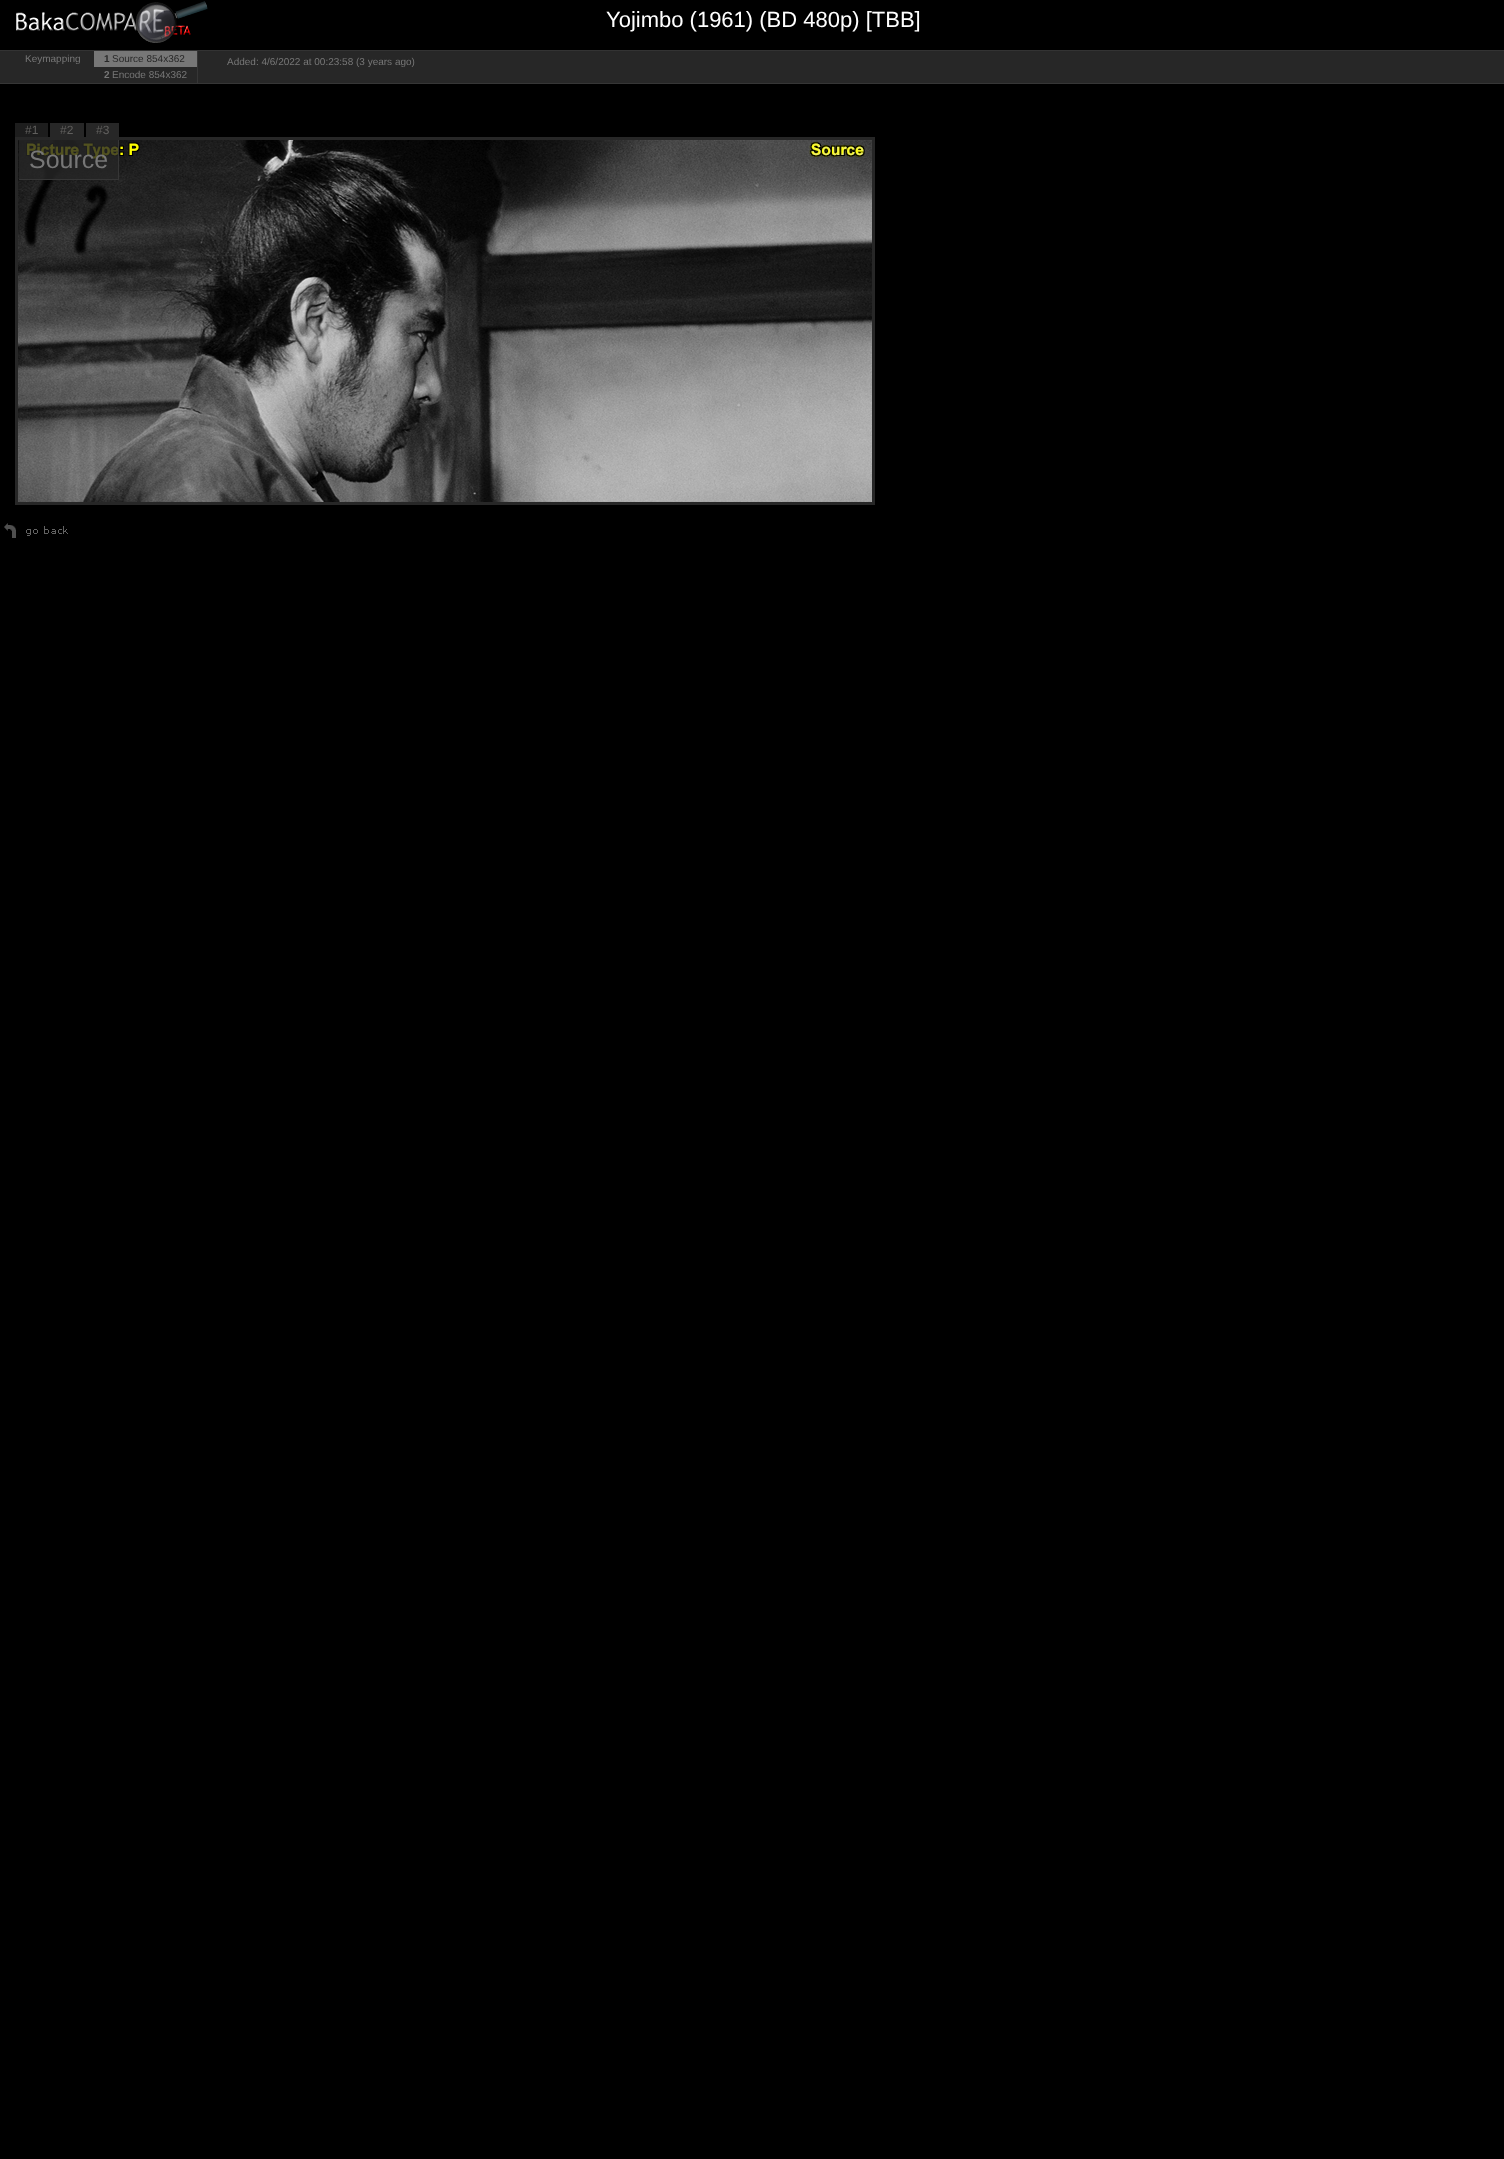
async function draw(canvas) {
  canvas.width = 1504;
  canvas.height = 2159;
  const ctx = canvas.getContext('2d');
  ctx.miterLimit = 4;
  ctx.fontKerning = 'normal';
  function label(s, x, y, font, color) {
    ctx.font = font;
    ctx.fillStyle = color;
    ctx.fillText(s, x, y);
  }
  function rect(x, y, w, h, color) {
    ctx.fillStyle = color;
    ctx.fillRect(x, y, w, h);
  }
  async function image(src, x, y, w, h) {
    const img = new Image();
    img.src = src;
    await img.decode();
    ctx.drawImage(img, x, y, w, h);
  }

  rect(0, 0, 1504, 2159, '#000');
  await image('assets/img1.png', 16, 1, 192, 42);
  label('Yojimbo (1961) (BD 480p) [TBB]', 606, 27, '22px Liberation Sans', '#fff');
  rect(0, 51, 1504, 32, '#272727');
  rect(0, 50, 1504, 1, '#333');
  rect(0, 83, 1504, 1, '#363636');
  label('Keymapping', 25, 62, '10px Liberation Sans', '#777');
  rect(197, 51, 1, 32, '#363636');
  rect(94, 51, 103, 16, '#777');
  label('1', 104, 62, 'bold 10px Liberation Sans', '#272727');
  label('Source 854x362', 112, 62, '10px Liberation Sans', '#272727');
  label('2', 104, 78, 'bold 10px Liberation Sans', '#777');
  label('Encode 854x362', 112, 78, '10px Liberation Sans', '#777');
  label('Added: 4/6/2022 at 00:23:58 (3 years ago)', 227, 65, '10px Liberation Sans', '#777');
  rect(15, 123, 33, 14, '#1d1d1d');
  label('#1', 25, 134, '12px Liberation Sans', '#605f5d');
  rect(50, 123, 34, 14, '#272727');
  label('#2', 60, 134, '12px Liberation Sans', '#605f5d');
  rect(86, 123, 33, 14, '#272727');
  label('#3', 96, 134, '12px Liberation Sans', '#605f5d');
  ctx.strokeStyle = '#272727';
  ctx.lineWidth = 3;
  ctx.strokeRect(16.5, 138.5, 857, 365);
  await image('assets/img2.png', 18, 140, 854, 362);
  rect(19, 140, 99, 39, '#272727cc');
  rect(118, 140, 1, 40, '#363636');
  rect(19, 179, 100, 1, '#363636');
  label('Source', 29, 168, '25px Liberation Sans', '#777');
  await image('assets/img3.png', 4, 523, 64, 15);
}

draw(document.querySelector('canvas'));
